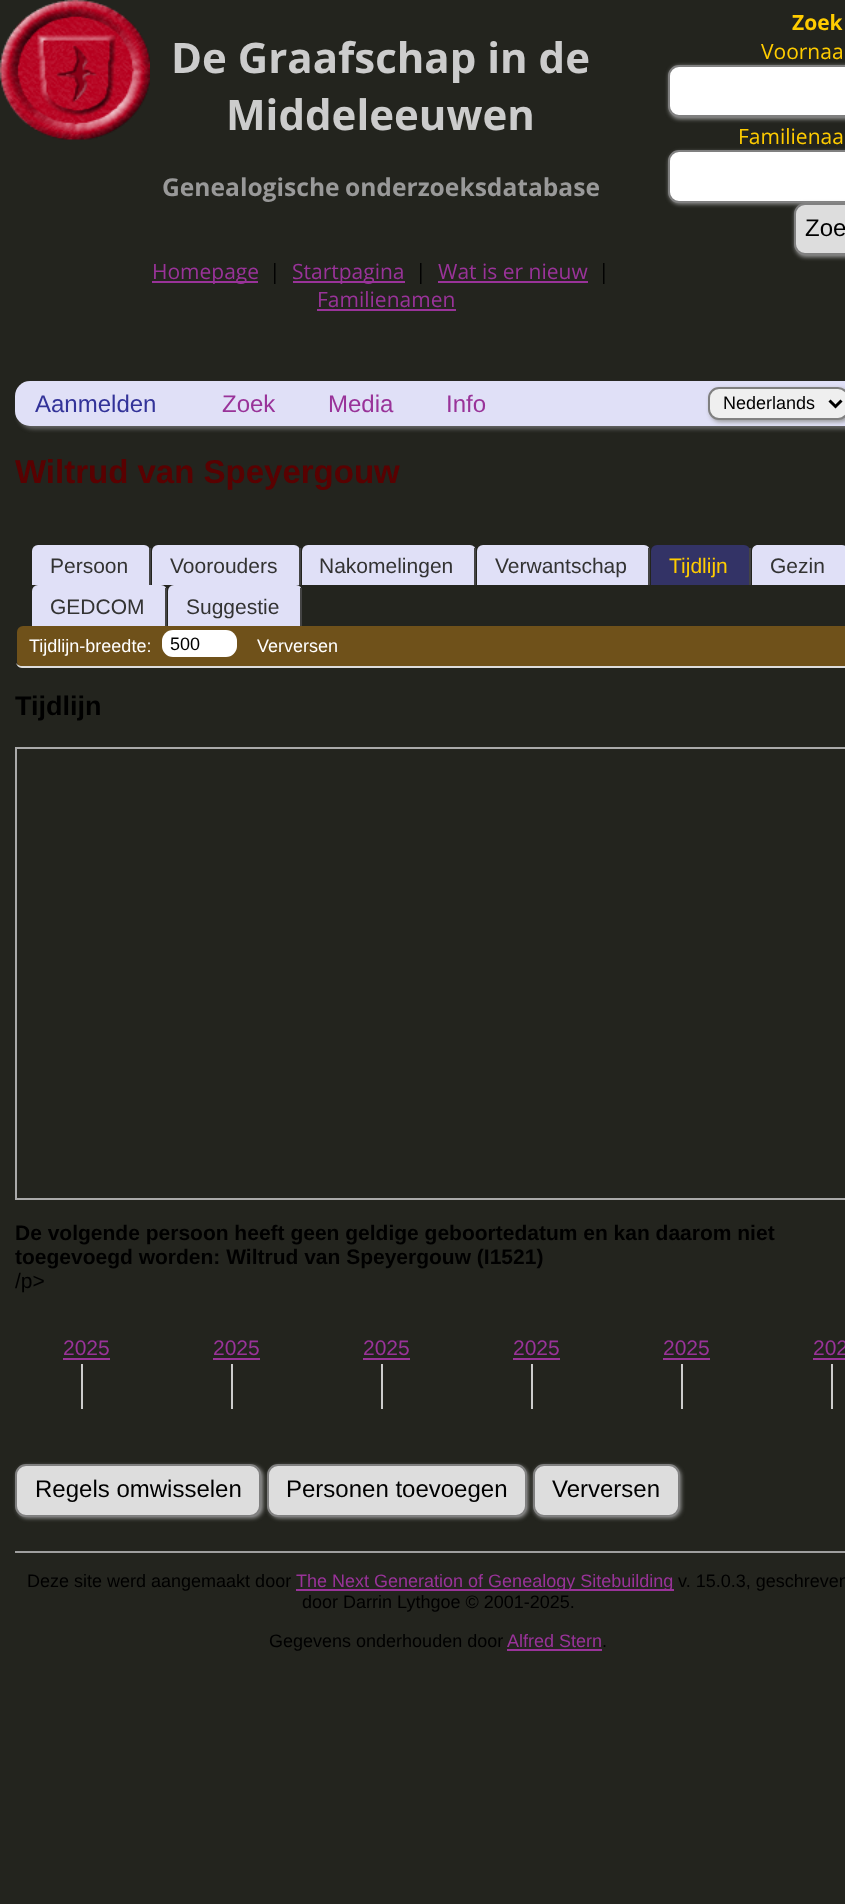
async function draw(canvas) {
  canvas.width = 845;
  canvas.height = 1904;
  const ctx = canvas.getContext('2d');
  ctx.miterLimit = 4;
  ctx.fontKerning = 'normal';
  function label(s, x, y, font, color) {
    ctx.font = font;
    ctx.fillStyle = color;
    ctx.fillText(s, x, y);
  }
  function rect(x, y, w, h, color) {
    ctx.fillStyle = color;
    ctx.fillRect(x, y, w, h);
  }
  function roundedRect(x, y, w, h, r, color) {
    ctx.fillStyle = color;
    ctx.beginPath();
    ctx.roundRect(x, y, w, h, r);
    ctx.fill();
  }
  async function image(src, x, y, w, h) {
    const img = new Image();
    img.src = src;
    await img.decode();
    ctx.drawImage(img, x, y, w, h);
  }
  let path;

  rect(0, 0, 845, 1904, '#23241e');
  await image('assets/img1.png', 0, 0, 150, 140);
  label('De Graafschap in de', 171, 73, 'bold 42px Open Sans', '#ccc');
  label('Middeleeuwen', 226, 130, 'bold 42px Open Sans', '#ccc');
  ctx.wordSpacing = '-1px';
  label('Genealogische onderzoeksdatabase', 162, 196, 'bold 24.6px Open Sans', '#999');
  rect(152, 281, 106, 2, '#939');
  ctx.wordSpacing = '0px';
  label('Homepage', 152, 279, '21px Open Sans', '#939');
  label('|', 269, 279, '21px Open Sans', '#000');
  rect(293, 281, 112, 2, '#939');
  label('Startpagina', 292, 279, '21px Open Sans', '#939');
  label('|', 415, 279, '21px Open Sans', '#000');
  label('Wat is er nieuw', 438, 279, '21px Open Sans', '#939');
  rect(438, 281, 150, 2, '#939');
  label('|', 598, 279, '21px Open Sans', '#000');
  label('Familienamen', 317, 307, '21px Open Sans', '#939');
  rect(317, 309, 139, 2, '#939');
  label('Zoek', 792, 30, 'bold 21px Open Sans', '#fc0');
  label('Voornaa', 761, 59, '21px Open Sans', '#fc0');
  ctx.fillStyle = '#999';
  ctx.filter = 'blur(2px)';
  ctx.beginPath();
  ctx.roundRect(669, 66, 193, 53, 11);
  ctx.fill();
  ctx.filter = 'none';
  ctx.fillStyle = '#fff';
  ctx.beginPath();
  ctx.roundRect(669, 66, 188, 50, 10);
  ctx.fill();
  ctx.strokeStyle = '#808080';
  ctx.lineWidth = 2;
  ctx.stroke();
  label('Familienaa', 738, 144, '21px Open Sans', '#fc0');
  ctx.fillStyle = '#999';
  ctx.filter = 'blur(2px)';
  ctx.beginPath();
  ctx.roundRect(669, 152, 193, 52, 11);
  ctx.fill();
  ctx.filter = 'none';
  ctx.fillStyle = '#fff';
  ctx.beginPath();
  ctx.roundRect(669, 151, 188, 51, 10);
  ctx.fill();
  ctx.stroke();
  ctx.fillStyle = '#999';
  ctx.filter = 'blur(2px)';
  ctx.beginPath();
  ctx.roundRect(795, 204, 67, 53, 11);
  ctx.fill();
  ctx.filter = 'none';
  ctx.fillStyle = '#ddd';
  ctx.beginPath();
  ctx.roundRect(795, 204, 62, 50, 10);
  ctx.fill();
  ctx.stroke();
  label('Zoe', 805, 236, '24px Liberation Sans', '#000');
  ctx.fillStyle = '#666';
  ctx.filter = 'blur(2px)';
  ctx.beginPath();
  ctx.roundRect(18, 384, 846, 45, 15);
  ctx.fill();
  ctx.filter = 'none';
  roundedRect(15, 381, 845, 45, 15, '#e0e0f7');
  label('Aanmelden', 35, 412, '24px Liberation Sans', '#339');
  label('Zoek', 222, 412, '24px Liberation Sans', '#939');
  label('Media', 328, 412, '24px Liberation Sans', '#939');
  label('Info', 446, 412, '24px Liberation Sans', '#939');
  ctx.fillStyle = '#999';
  ctx.filter = 'blur(2px)';
  ctx.beginPath();
  ctx.roundRect(710, 389, 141, 33, 11);
  ctx.fill();
  ctx.filter = 'none';
  ctx.fillStyle = '#efefef';
  ctx.beginPath();
  ctx.roundRect(709, 388, 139, 31, 10);
  ctx.fill();
  ctx.stroke();
  path = new Path2D('M829.5 400.5L835.5 406.5L841.5 400.5');
  ctx.strokeStyle = '#000';
  ctx.lineWidth = 3;
  ctx.stroke(path);
  label('Nederlands', 723, 409, '18px Liberation Sans', '#000');
  label('Wiltrud van Speyergouw', 15, 483, 'bold 33px Liberation Sans', '#590101');
  ctx.fillStyle = '#e0e0f7';
  ctx.beginPath();
  ctx.roundRect(32, 545, 118, 40, [6, 6, 0, 0]);
  ctx.fill();
  rect(149, 548, 2, 37, '#444');
  label('Persoon', 50, 573, '21px Liberation Sans', '#333');
  ctx.fillStyle = '#e0e0f7';
  ctx.beginPath();
  ctx.roundRect(152, 545, 148, 40, [6, 6, 0, 0]);
  ctx.fill();
  rect(299, 548, 2, 37, '#444');
  label('Voorouders', 170, 573, '21px Liberation Sans', '#333');
  ctx.fillStyle = '#e0e0f7';
  ctx.beginPath();
  ctx.roundRect(302, 545, 174, 40, [6, 6, 0, 0]);
  ctx.fill();
  rect(474, 548, 2, 37, '#444');
  label('Nakomelingen', 319, 573, '21px Liberation Sans', '#333');
  ctx.fillStyle = '#e0e0f7';
  ctx.beginPath();
  ctx.roundRect(477, 545, 173, 40, [6, 6, 0, 0]);
  ctx.fill();
  rect(648, 548, 2, 37, '#444');
  label('Verwantschap', 495, 573, '21px Liberation Sans', '#333');
  ctx.fillStyle = '#336';
  ctx.beginPath();
  ctx.roundRect(651, 545, 99, 40, [6, 6, 0, 0]);
  ctx.fill();
  rect(749, 548, 2, 37, '#444');
  label('Tijdlijn', 669, 573, '21px Liberation Sans', '#fc0');
  ctx.fillStyle = '#e0e0f7';
  path = new Path2D('M758 545H842C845.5 545 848 547.5 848 551V585H752V551C752 547.5 754.5 545 758 545Z');
  ctx.fill(path);
  label('Gezin', 770, 573, '21px Liberation Sans', '#333');
  ctx.fillStyle = '#e0e0f7';
  ctx.beginPath();
  ctx.roundRect(32, 585, 135, 41, [6, 6, 0, 0]);
  ctx.fill();
  rect(165, 588, 2, 38, '#444');
  label('GEDCOM', 50, 614, '21px Liberation Sans', '#333');
  ctx.fillStyle = '#e0e0f7';
  ctx.beginPath();
  ctx.roundRect(168, 585, 134, 41, [6, 6, 0, 0]);
  ctx.fill();
  rect(300, 588, 2, 38, '#444');
  label('Suggestie', 186, 614, '21px Liberation Sans', '#333');
  roundedRect(17, 626, 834, 42, 6, '#6f511a');
  ctx.fillStyle = '#ddd';
  path = new Path2D('M22 626H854C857 626 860 628 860 632V662C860 665 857 668 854 668H22C19 668 16 665 16 662V632C16 628 19 626 22 626ZM22 626H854C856 626 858 628 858 632V662C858 664 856 666 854 666H22C19 666 16 664 16 662V632C16 628 19 626 22 626Z');
  ctx.fill(path, 'evenodd');
  label('Tijdlijn-breedte:', 29, 652, '18px Liberation Sans', '#fff');
  roundedRect(162, 630, 75, 27, 11, '#fff');
  label('500', 170, 650, '18px Liberation Sans', '#000');
  label('Verversen', 257, 652, '18px Liberation Sans', '#fff');
  label('Tijdlijn', 15, 715, 'bold 27px Liberation Sans', '#000');
  ctx.strokeStyle = '#aaa';
  ctx.lineWidth = 2;
  ctx.strokeRect(16, 748, 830, 451);
  label('De volgende persoon heeft geen geldige geboortedatum en kan daarom niet', 15, 1240, 'bold 21px Liberation Sans', '#000');
  label('toegevoegd worden: Wiltrud van Speyergouw (I1521)', 15, 1264, 'bold 21px Liberation Sans', '#000');
  label('/p>', 15, 1288, '21px Liberation Sans', '#000');
  label('2025', 63, 1355, '21px Liberation Sans', '#939');
  rect(63, 1358, 47, 2, '#939');
  label('2025', 213, 1355, '21px Liberation Sans', '#939');
  rect(213, 1358, 47, 2, '#939');
  label('2025', 363, 1355, '21px Liberation Sans', '#939');
  rect(363, 1358, 47, 2, '#939');
  label('2025', 513, 1355, '21px Liberation Sans', '#939');
  rect(513, 1358, 47, 2, '#939');
  label('2025', 663, 1355, '21px Liberation Sans', '#939');
  rect(663, 1358, 47, 2, '#939');
  label('202', 813, 1355, '21px Liberation Sans', '#939');
  rect(813, 1358, 32, 2, '#939');
  rect(81, 1364, 2, 45, '#ccc');
  rect(231, 1364, 2, 45, '#ccc');
  rect(381, 1364, 2, 45, '#ccc');
  rect(531, 1364, 2, 45, '#ccc');
  rect(681, 1364, 2, 45, '#ccc');
  rect(831, 1364, 2, 45, '#ccc');
  ctx.fillStyle = '#999';
  ctx.filter = 'blur(2px)';
  ctx.beginPath();
  ctx.roundRect(17, 1466, 246, 52, 11);
  ctx.fill();
  ctx.filter = 'none';
  ctx.fillStyle = '#ddd';
  ctx.beginPath();
  ctx.roundRect(16, 1465, 244, 51, 10);
  ctx.fill();
  ctx.strokeStyle = '#808080';
  ctx.stroke();
  label('Regels omwisselen', 35, 1497, '24px Liberation Sans', '#000');
  ctx.fillStyle = '#999';
  ctx.filter = 'blur(2px)';
  ctx.beginPath();
  ctx.roundRect(269, 1466, 259, 52, 11);
  ctx.fill();
  ctx.filter = 'none';
  ctx.fillStyle = '#ddd';
  ctx.beginPath();
  ctx.roundRect(268, 1465, 258, 51, 10);
  ctx.fill();
  ctx.stroke();
  label('Personen toevoegen', 286, 1497, '24px Liberation Sans', '#000');
  ctx.fillStyle = '#999';
  ctx.filter = 'blur(2px)';
  ctx.beginPath();
  ctx.roundRect(534, 1466, 147, 52, 11);
  ctx.fill();
  ctx.filter = 'none';
  ctx.fillStyle = '#ddd';
  ctx.beginPath();
  ctx.roundRect(534, 1465, 145, 51, 10);
  ctx.fill();
  ctx.stroke();
  label('Verversen', 552, 1497, '24px Liberation Sans', '#000');
  rect(15, 1551, 830, 2, '#9f9f9f');
  label('Deze site werd aangemaakt door', 27, 1587, '18px Liberation Sans', '#000');
  rect(296, 1589, 378, 2, '#939');
  label('The Next Generation of Genealogy Sitebuilding', 296, 1587, '18px Liberation Sans', '#939');
  label('v. 15.0.3, geschreven', 678, 1587, '18px Liberation Sans', '#000');
  label('door Darrin Lythgoe © 2001-2025.', 302, 1608, '18px Liberation Sans', '#000');
  label('Gegevens onderhouden door', 269, 1647, '18px Liberation Sans', '#000');
  label('Alfred Stern', 507, 1647, '18px Liberation Sans', '#939');
  rect(507, 1649, 95, 2, '#939');
  label('.', 602, 1647, '18px Liberation Sans', '#000');
}

draw(document.querySelector('canvas'));
